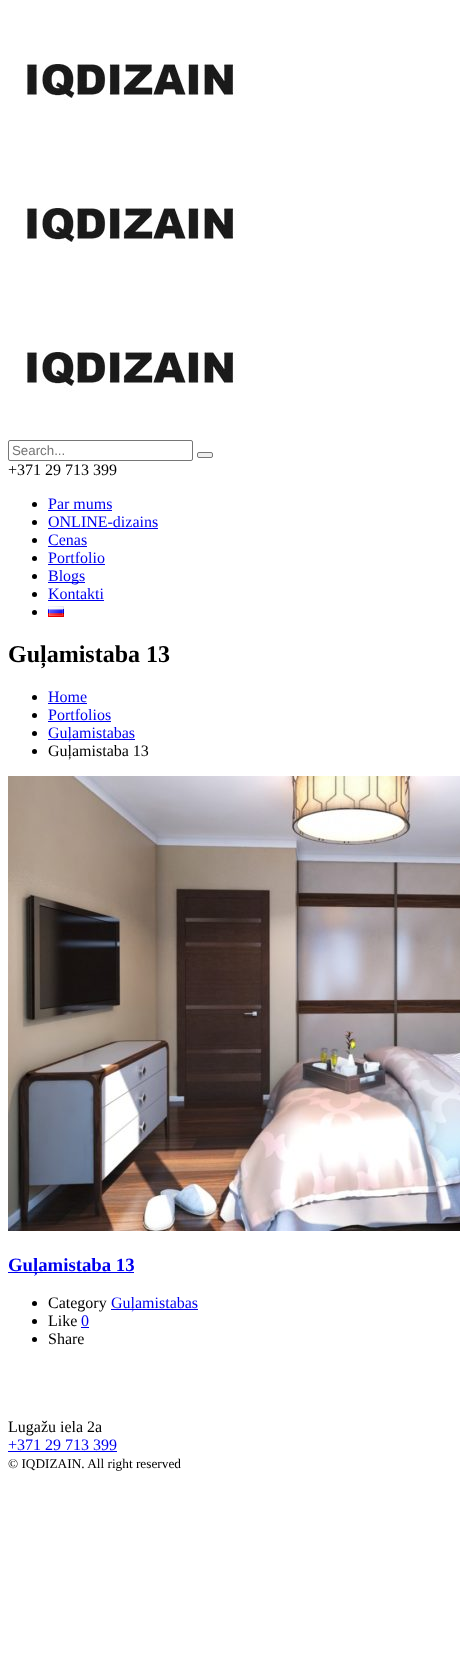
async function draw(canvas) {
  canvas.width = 460;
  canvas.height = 1680;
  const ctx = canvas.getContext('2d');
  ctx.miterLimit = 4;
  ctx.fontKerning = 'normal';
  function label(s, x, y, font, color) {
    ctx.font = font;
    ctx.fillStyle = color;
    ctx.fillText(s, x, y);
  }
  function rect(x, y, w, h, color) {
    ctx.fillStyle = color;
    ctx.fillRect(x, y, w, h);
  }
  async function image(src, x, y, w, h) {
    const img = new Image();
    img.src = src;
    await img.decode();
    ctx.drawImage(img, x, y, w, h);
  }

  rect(0, 0, 460, 1680, '#fff');
  await image('assets/img1.png', 25, 64, 215, 40);
  await image('assets/img1.png', 25, 208, 215, 40);
  await image('assets/img1.png', 25, 352, 215, 40);
  ctx.beginPath();
  ctx.roundRect(8.5, 440.5, 184, 20, 1.5);
  ctx.strokeStyle = '#767676';
  ctx.stroke();
  label('Search...', 12, 455, '13.3px Liberation Sans', '#757575');
  ctx.fillStyle = '#efefef';
  ctx.beginPath();
  ctx.roundRect(197.5, 452.5, 15, 5, 1.5);
  ctx.fill();
  ctx.stroke();
  label('+371 29 713 399', 8, 475, '16px Liberation Serif', '#000');
  ctx.beginPath();
  ctx.arc(34.5, 504.5, 2.5, 0, 2 * Math.PI);
  ctx.fill();
  label('Par mums', 48, 509, '16px Liberation Serif', '#00e');
  rect(48, 510, 64, 1, '#00e');
  ctx.fillStyle = '#000';
  ctx.beginPath();
  ctx.arc(34.5, 522.5, 2.5, 0, 2 * Math.PI);
  ctx.fill();
  label('ONLINE-dizains', 48, 527, '16px Liberation Serif', '#00e');
  rect(48, 528, 110, 1, '#00e');
  ctx.fillStyle = '#000';
  ctx.beginPath();
  ctx.arc(34.5, 540.5, 2.5, 0, 2 * Math.PI);
  ctx.fill();
  label('Cenas', 48, 545, '16px Liberation Serif', '#00e');
  rect(48, 546, 39, 1, '#00e');
  ctx.fillStyle = '#000';
  ctx.beginPath();
  ctx.arc(34.5, 558.5, 2.5, 0, 2 * Math.PI);
  ctx.fill();
  label('Portfolio', 48, 563, '16px Liberation Serif', '#00e');
  rect(48, 564, 57, 1, '#00e');
  ctx.fillStyle = '#000';
  ctx.beginPath();
  ctx.arc(34.5, 576.5, 2.5, 0, 2 * Math.PI);
  ctx.fill();
  rect(48, 582, 37, 1, '#00e');
  label('Blogs', 48, 581, '16px Liberation Serif', '#00e');
  ctx.fillStyle = '#000';
  ctx.beginPath();
  ctx.arc(34.5, 594.5, 2.5, 0, 2 * Math.PI);
  ctx.fill();
  label('Kontakti', 48, 599, '16px Liberation Serif', '#00e');
  rect(48, 600, 56, 1, '#00e');
  ctx.fillStyle = '#000';
  ctx.beginPath();
  ctx.arc(34.5, 612.5, 2.5, 0, 2 * Math.PI);
  ctx.fill();
  await image('assets/img2.png', 48, 606, 16, 11);
  label('Guļamistaba 13', 8, 662, 'bold 24px Liberation Serif', '#000');
  ctx.beginPath();
  ctx.arc(34.5, 697.5, 2.5, 0, 2 * Math.PI);
  ctx.fill();
  label('Home', 48, 702, '16px Liberation Serif', '#00e');
  rect(48, 703, 39, 1, '#00e');
  ctx.fillStyle = '#000';
  ctx.beginPath();
  ctx.arc(34.5, 715.5, 2.5, 0, 2 * Math.PI);
  ctx.fill();
  label('Portfolios', 48, 720, '16px Liberation Serif', '#00e');
  rect(48, 721, 63, 1, '#00e');
  ctx.fillStyle = '#000';
  ctx.beginPath();
  ctx.arc(34.5, 733.5, 2.5, 0, 2 * Math.PI);
  ctx.fill();
  rect(48, 739, 87, 1, '#00e');
  label('Guļamistabas', 48, 738, '16px Liberation Serif', '#00e');
  ctx.fillStyle = '#000';
  ctx.beginPath();
  ctx.arc(34.5, 751.5, 2.5, 0, 2 * Math.PI);
  ctx.fill();
  label('Guļamistaba 13', 48, 756, '16px Liberation Serif', '#000');
  await image('assets/img3.png', 8, 776, 452, 455);
  rect(8, 1272, 126, 1, '#00e');
  label('Guļamistaba 13', 8, 1271, 'bold 18.75px Liberation Serif', '#00e');
  ctx.fillStyle = '#000';
  ctx.beginPath();
  ctx.arc(34.5, 1303.5, 2.5, 0, 2 * Math.PI);
  ctx.fill();
  label('Category', 48, 1308, '16px Liberation Serif', '#000');
  rect(111, 1309, 87, 1, '#00e');
  label('Guļamistabas', 111, 1308, '16px Liberation Serif', '#00e');
  ctx.fillStyle = '#000';
  ctx.beginPath();
  ctx.arc(34.5, 1321.5, 2.5, 0, 2 * Math.PI);
  ctx.fill();
  label('Like', 48, 1326, '16px Liberation Serif', '#000');
  label('0', 81, 1326, '16px Liberation Serif', '#00e');
  rect(81, 1327, 8, 1, '#00e');
  ctx.fillStyle = '#000';
  ctx.beginPath();
  ctx.arc(34.5, 1339.5, 2.5, 0, 2 * Math.PI);
  ctx.fill();
  label('Share', 48, 1344, '16px Liberation Serif', '#000');
  label('Lugažu iela 2a', 8, 1432, '16px Liberation Serif', '#000');
  label('+371 29 713 399', 8, 1450, '16px Liberation Serif', '#00e');
  rect(8, 1451, 109, 1, '#00e');
  label('© IQDIZAIN. All right reserved', 8, 1468, '13.3px Liberation Serif', '#000');
}

draw(document.querySelector('canvas'));
